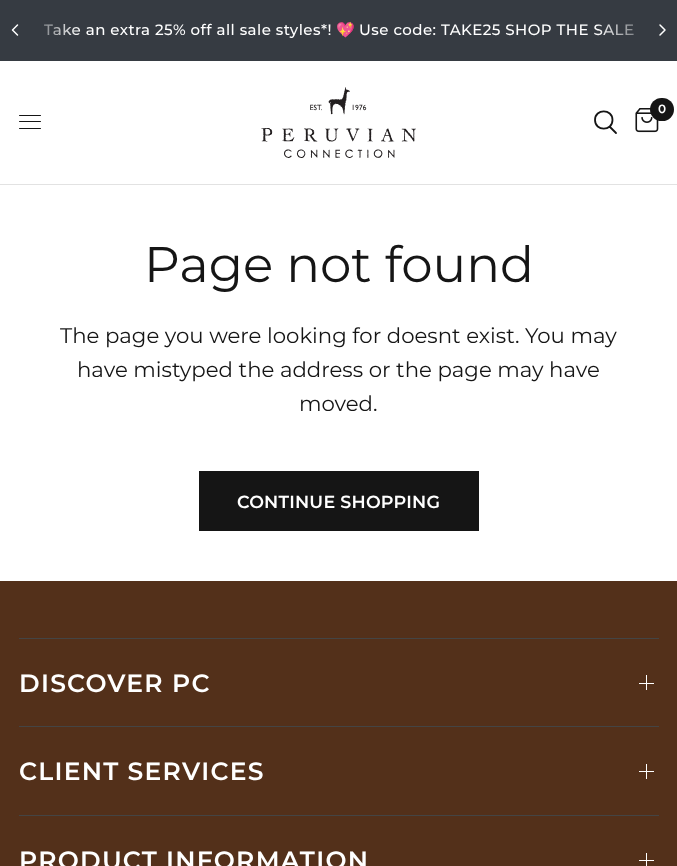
async function draw(canvas) {
  canvas.width = 677;
  canvas.height = 866;
  const ctx = canvas.getContext('2d');
  ctx.miterLimit = 4;
  ctx.fontKerning = 'normal';
  function label(s, x, y, font, color) {
    ctx.font = font;
    ctx.fillStyle = color;
    ctx.fillText(s, x, y);
  }
  function rect(x, y, w, h, color) {
    ctx.fillStyle = color;
    ctx.fillRect(x, y, w, h);
  }
  function roundedRect(x, y, w, h, r, color) {
    ctx.fillStyle = color;
    ctx.beginPath();
    ctx.roundRect(x, y, w, h, r);
    ctx.fill();
  }
  async function image(src, x, y, w, h) {
    const img = new Image();
    img.src = src;
    await img.decode();
    ctx.drawImage(img, x, y, w, h);
  }
  let gradient, path;

  rect(0, 0, 677, 866, '#fff');
  rect(0, 0, 677, 61, '#363b42');
  path = new Path2D('M17.5 25L12.5 30L17.5 35');
  ctx.strokeStyle = '#fff';
  ctx.lineWidth = 1.5;
  ctx.lineCap = 'round';
  ctx.lineJoin = 'round';
  ctx.stroke(path);
  ctx.letterSpacing = '0.45px';
  label('Take an extra 25% off all sale styles*!', 44, 35, '500 15px Montserrat', '#fff');
  label('💖', 336, 35, '15px Noto Color Emoji', '#fff');
  label('Use code: TAKE25 SHOP THE SALE', 359, 35, '500 15px Montserrat', '#fff');
  gradient = ctx.createLinearGradient(81, 31, 19, 31);
  gradient.addColorStop(0, '#363b4200');
  gradient.addColorStop(1, '#363b42');
  ctx.fillStyle = gradient;
  ctx.fillRect(44, 23, 36, 13);
  gradient = ctx.createLinearGradient(596, 31, 659, 31);
  gradient.addColorStop(0, '#363b4200');
  gradient.addColorStop(1, '#363b42');
  ctx.fillStyle = gradient;
  ctx.fillRect(597, 24, 36, 11);
  path = new Path2D('M660 25L665 30L660 35');
  ctx.stroke(path);
  rect(0, 184, 677, 1, '#e2e2e2');
  await image('assets/img1.png', 261, 87, 155, 71);
  await image('assets/img2.png', 635, 108, 24, 25);
  roundedRect(650, 98, 24, 23, 11.5, '#151515');
  ctx.letterSpacing = '0px';
  label('0', 658, 113, '600 12px Montserrat', '#fff');
  path = new Path2D('M610 127L616 133M612.5 120C612.5 131.5 595 131.5 595 120C595 108.5 612.5 108.5 612.5 120Z');
  ctx.strokeStyle = '#151515';
  ctx.lineWidth = 1.8;
  ctx.stroke(path);
  roundedRect(19, 115, 22, 1, 0.5, '#151515');
  roundedRect(19, 121, 22, 1, 0.5, '#151515');
  roundedRect(19, 128, 22, 1, 0.5, '#151515');
  label('Page not found', 144, 282, '50px Montserrat', '#151515');
  label('The page you were looking for doesnt exist. You may', 60, 343, '21.25px Montserrat', '#151515');
  label('have mistyped the address or the page may have', 77, 377, '21.25px Montserrat', '#151515');
  label('moved.', 299, 411, '21.25px Montserrat', '#151515');
  rect(199, 471, 280, 60, '#151515');
  ctx.letterSpacing = '0.2px';
  label('CONTINUE SHOPPING', 237, 508, '600 17.5px Montserrat', '#fff');
  rect(0, 581, 677, 285, '#53301a');
  rect(19, 638, 640, 1, '#444');
  ctx.letterSpacing = '1.25px';
  label('DISCOVER PC', 19, 692, '600 25px Montserrat', '#fff');
  rect(646, 675, 1, 15, '#fff');
  rect(639, 683, 15, 1, '#fff');
  rect(19, 726, 640, 1, '#444');
  label('CLIENT SERVICES', 19, 780, '600 25px Montserrat', '#fff');
  rect(646, 764, 1, 15, '#fff');
  rect(639, 771, 15, 1, '#fff');
  rect(19, 815, 640, 1, '#444');
  label('PRODUCT INFORMATION', 19, 869, '600 25px Montserrat', '#fff');
  rect(646, 853, 1, 13, '#fff');
  rect(639, 860, 15, 1, '#fff');
}

draw(document.querySelector('canvas'));
